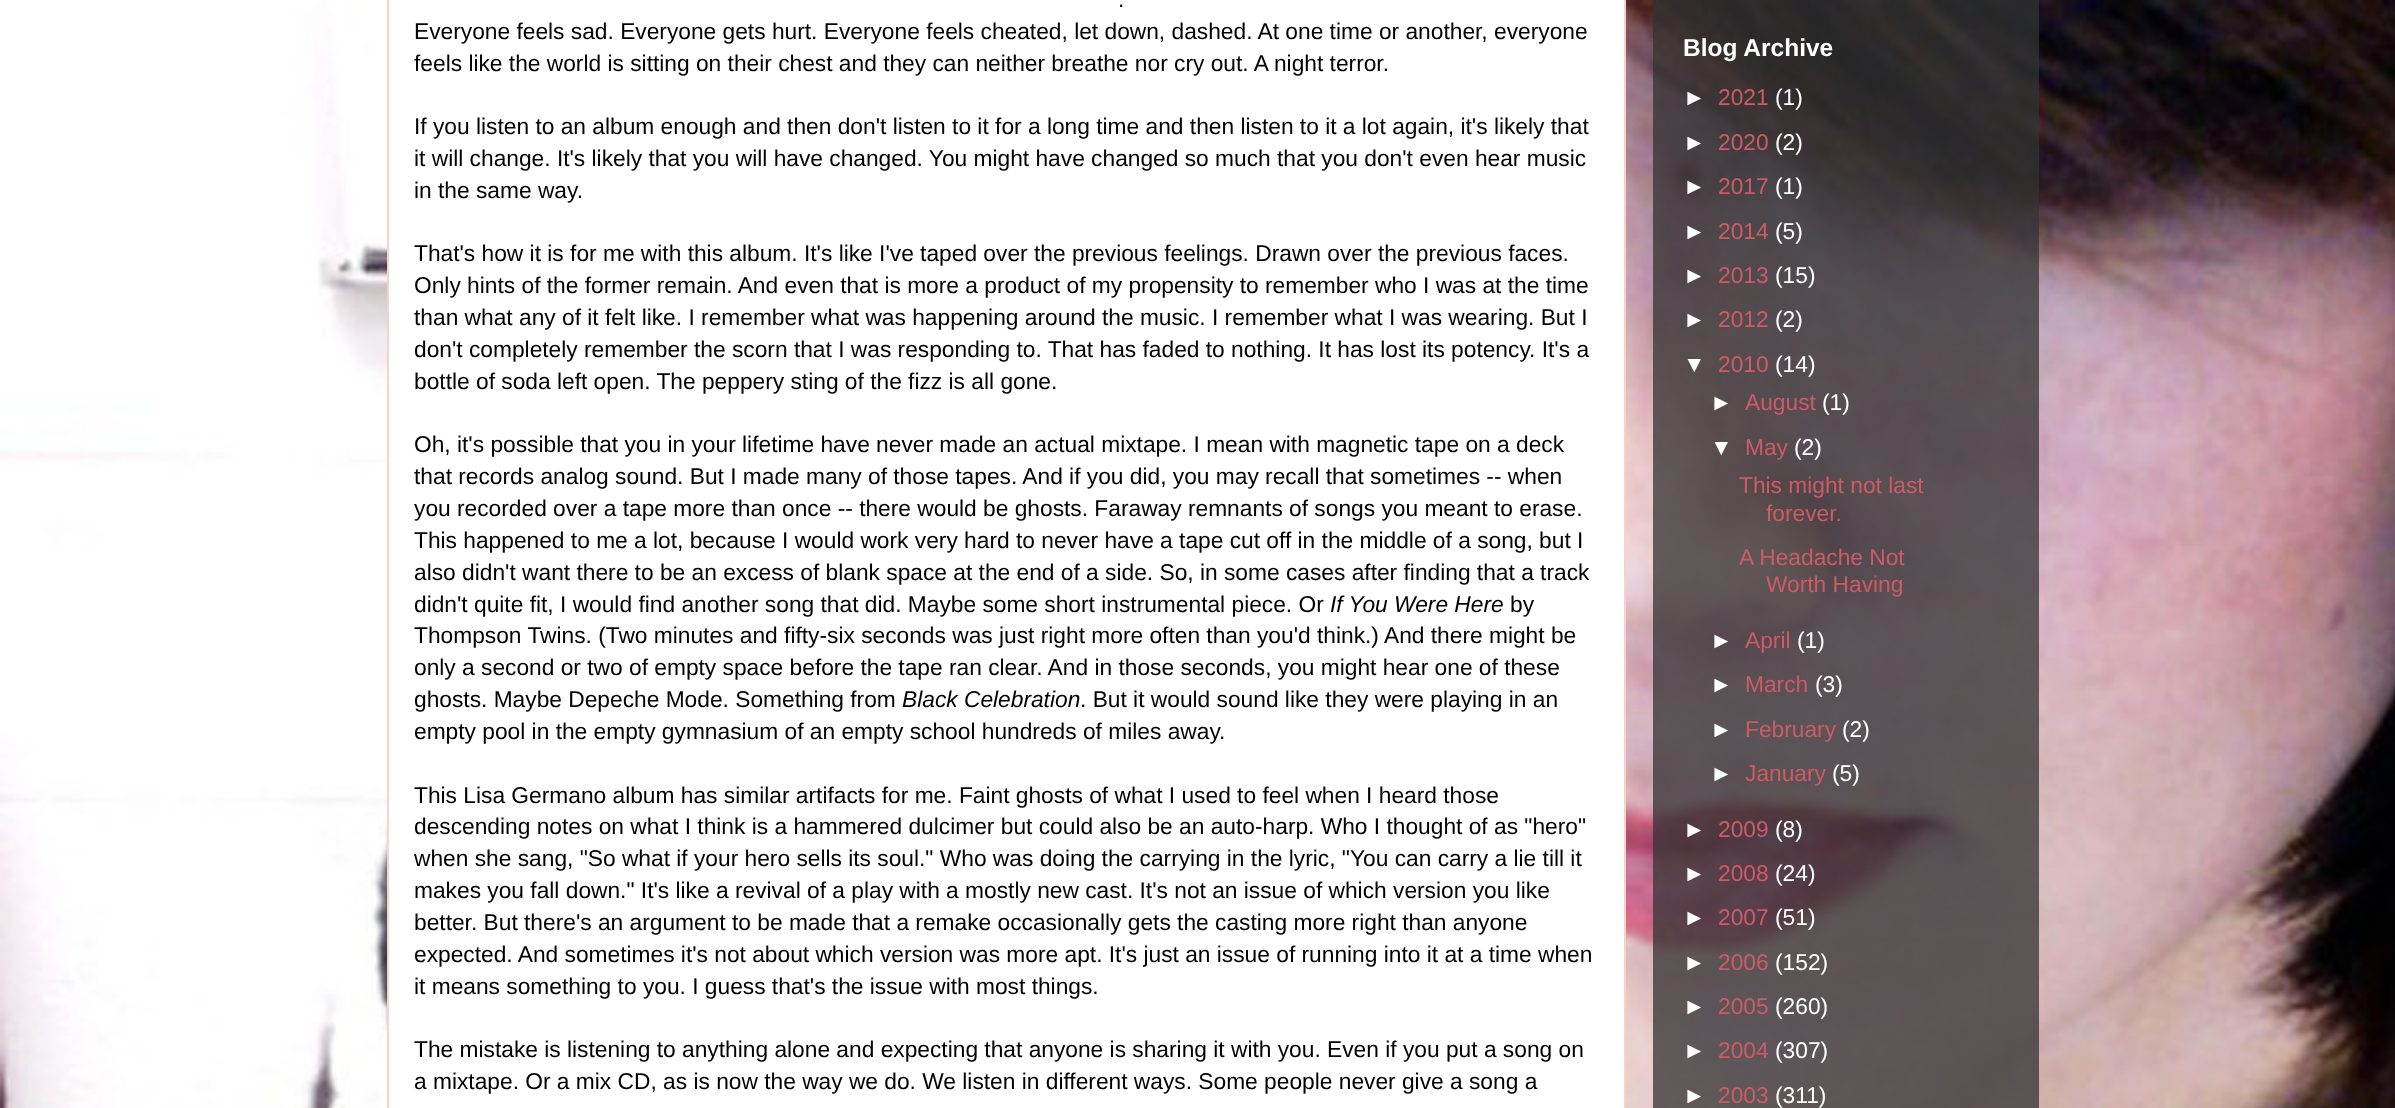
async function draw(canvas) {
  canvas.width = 2395;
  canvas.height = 1108;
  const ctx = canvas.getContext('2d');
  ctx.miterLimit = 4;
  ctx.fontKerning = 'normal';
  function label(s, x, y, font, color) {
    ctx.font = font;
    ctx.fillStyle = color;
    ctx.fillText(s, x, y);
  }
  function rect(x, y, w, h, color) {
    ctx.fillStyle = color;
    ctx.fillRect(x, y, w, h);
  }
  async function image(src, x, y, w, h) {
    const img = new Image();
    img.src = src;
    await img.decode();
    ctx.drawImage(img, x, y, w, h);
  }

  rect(0, 0, 2395, 1108, '#fff');
  await image('assets/img1.png', 0, 0, 2395, 1108);
  ctx.beginPath();
  ctx.rect(388, -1, 1237, 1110);
  ctx.fill();
  ctx.strokeStyle = '#f3d3ca';
  ctx.lineWidth = 2;
  ctx.stroke();
  label('.', 1118, 7, '22.75px Liberation Sans', '#000');
  label('Everyone feels sad. Everyone gets hurt. Everyone feels cheated, let down, dashed. At one time or another, everyone', 414, 39, '22.75px Liberation Sans', '#000');
  label('feels like the world is sitting on their chest and they can neither breathe nor cry out. A night terror.', 414, 71, '22.75px Liberation Sans', '#000');
  label('If you listen to an album enough and then don\'t listen to it for a long time and then listen to it a lot again, it\'s likely that', 414, 134, '22.75px Liberation Sans', '#000');
  label('it will change. It\'s likely that you will have changed. You might have changed so much that you don\'t even hear music', 414, 166, '22.75px Liberation Sans', '#000');
  label('in the same way.', 414, 198, '22.75px Liberation Sans', '#000');
  label('That\'s how it is for me with this album. It\'s like I\'ve taped over the previous feelings. Drawn over the previous faces.', 414, 261, '22.75px Liberation Sans', '#000');
  label('Only hints of the former remain. And even that is more a product of my propensity to remember who I was at the time', 414, 293, '22.75px Liberation Sans', '#000');
  label('than what any of it felt like. I remember what was happening around the music. I remember what I was wearing. But I', 414, 325, '22.75px Liberation Sans', '#000');
  label('don\'t completely remember the scorn that I was responding to. That has faded to nothing. It has lost its potency. It\'s a', 414, 357, '22.75px Liberation Sans', '#000');
  label('bottle of soda left open. The peppery sting of the fizz is all gone.', 414, 389, '22.75px Liberation Sans', '#000');
  label('Oh, it\'s possible that you in your lifetime have never made an actual mixtape. I mean with magnetic tape on a deck', 414, 452, '22.75px Liberation Sans', '#000');
  label('that records analog sound. But I made many of those tapes. And if you did, you may recall that sometimes -- when', 414, 484, '22.75px Liberation Sans', '#000');
  label('you recorded over a tape more than once -- there would be ghosts. Faraway remnants of songs you meant to erase.', 414, 516, '22.75px Liberation Sans', '#000');
  label('This happened to me a lot, because I would work very hard to never have a tape cut off in the middle of a song, but I', 414, 548, '22.75px Liberation Sans', '#000');
  label('also didn\'t want there to be an excess of blank space at the end of a side. So, in some cases after finding that a track', 414, 580, '22.75px Liberation Sans', '#000');
  label('didn\'t quite fit, I would find another song that did. Maybe some short instrumental piece. Or', 414, 612, '22.75px Liberation Sans', '#000');
  label('If You Were Here', 1330, 612, 'italic 22.75px Liberation Sans', '#000');
  label('by', 1510, 612, '22.75px Liberation Sans', '#000');
  label('Thompson Twins. (Two minutes and fifty-six seconds was just right more often than you\'d think.) And there might be', 414, 643, '22.75px Liberation Sans', '#000');
  label('only a second or two of empty space before the tape ran clear. And in those seconds, you might hear one of these', 414, 675, '22.75px Liberation Sans', '#000');
  label('ghosts. Maybe Depeche Mode. Something from', 414, 707, '22.75px Liberation Sans', '#000');
  label('Black Celebration', 902, 707, 'italic 22.75px Liberation Sans', '#000');
  label('. But it would sound like they were playing in an', 1080, 707, '22.75px Liberation Sans', '#000');
  label('empty pool in the empty gymnasium of an empty school hundreds of miles away.', 414, 739, '22.75px Liberation Sans', '#000');
  label('This Lisa Germano album has similar artifacts for me. Faint ghosts of what I used to feel when I heard those', 414, 803, '22.75px Liberation Sans', '#000');
  label('descending notes on what I think is a hammered dulcimer but could also be an auto-harp. Who I thought of as "hero"', 414, 834, '22.75px Liberation Sans', '#000');
  label('when she sang, "So what if your hero sells its soul." Who was doing the carrying in the lyric, "You can carry a lie till it', 414, 866, '22.75px Liberation Sans', '#000');
  label('makes you fall down." It\'s like a revival of a play with a mostly new cast. It\'s not an issue of which version you like', 414, 898, '22.75px Liberation Sans', '#000');
  label('better. But there\'s an argument to be made that a remake occasionally gets the casting more right than anyone', 414, 930, '22.75px Liberation Sans', '#000');
  label('expected. And sometimes it\'s not about which version was more apt. It\'s just an issue of running into it at a time when', 414, 962, '22.75px Liberation Sans', '#000');
  label('it means something to you. I guess that\'s the issue with most things.', 414, 994, '22.75px Liberation Sans', '#000');
  label('The mistake is listening to anything alone and expecting that anyone is sharing it with you. Even if you put a song on', 414, 1057, '22.75px Liberation Sans', '#000');
  label('a mixtape. Or a mix CD, as is now the way we do. We listen in different ways. Some people never give a song a', 414, 1089, '22.75px Liberation Sans', '#000');
  rect(1653, 0, 386, 1108, '#333333bf');
  label('Blog Archive', 1683, 56, 'bold 24.5px Liberation Sans', '#fff');
  label('►', 1683, 105, '22.75px Liberation Sans', '#fff');
  label('2021', 1718, 105, '22.75px Liberation Sans', '#cc5b66');
  label('(1)', 1775, 105, '22.75px Liberation Sans', '#fff');
  label('►', 1683, 150, '22.75px Liberation Sans', '#fff');
  label('2020', 1718, 150, '22.75px Liberation Sans', '#cc5b66');
  label('(2)', 1775, 150, '22.75px Liberation Sans', '#fff');
  label('►', 1683, 194, '22.75px Liberation Sans', '#fff');
  label('2017', 1718, 194, '22.75px Liberation Sans', '#cc5b66');
  label('(1)', 1775, 194, '22.75px Liberation Sans', '#fff');
  label('►', 1683, 239, '22.75px Liberation Sans', '#fff');
  label('2014', 1718, 239, '22.75px Liberation Sans', '#cc5b66');
  label('(5)', 1775, 239, '22.75px Liberation Sans', '#fff');
  label('►', 1683, 283, '22.75px Liberation Sans', '#fff');
  label('2013', 1718, 283, '22.75px Liberation Sans', '#cc5b66');
  label('(15)', 1775, 283, '22.75px Liberation Sans', '#fff');
  label('►', 1683, 327, '22.75px Liberation Sans', '#fff');
  label('2012', 1718, 327, '22.75px Liberation Sans', '#cc5b66');
  label('(2)', 1775, 327, '22.75px Liberation Sans', '#fff');
  label('▼', 1683, 372, '22.75px Liberation Sans', '#fff');
  label('2010', 1718, 372, '22.75px Liberation Sans', '#cc5b66');
  label('(14)', 1775, 372, '22.75px Liberation Sans', '#fff');
  label('►', 1710, 410, '22.75px Liberation Sans', '#fff');
  label('August', 1745, 410, '22.75px Liberation Sans', '#cc5b66');
  label('(1)', 1822, 410, '22.75px Liberation Sans', '#fff');
  label('▼', 1710, 455, '22.75px Liberation Sans', '#fff');
  label('May', 1745, 455, '22.75px Liberation Sans', '#cc5b66');
  label('(2)', 1794, 455, '22.75px Liberation Sans', '#fff');
  label('This might not last', 1739, 493, '22.75px Liberation Sans', '#cc5b66');
  label('forever.', 1766, 521, '22.75px Liberation Sans', '#cc5b66');
  label('A Headache Not', 1739, 565, '22.75px Liberation Sans', '#cc5b66');
  label('Worth Having', 1766, 592, '22.75px Liberation Sans', '#cc5b66');
  label('►', 1710, 648, '22.75px Liberation Sans', '#fff');
  label('April', 1745, 648, '22.75px Liberation Sans', '#cc5b66');
  label('(1)', 1797, 648, '22.75px Liberation Sans', '#fff');
  label('►', 1710, 692, '22.75px Liberation Sans', '#fff');
  label('March', 1745, 692, '22.75px Liberation Sans', '#cc5b66');
  label('(3)', 1815, 692, '22.75px Liberation Sans', '#fff');
  label('►', 1710, 737, '22.75px Liberation Sans', '#fff');
  label('February', 1745, 737, '22.75px Liberation Sans', '#cc5b66');
  label('(2)', 1842, 737, '22.75px Liberation Sans', '#fff');
  label('►', 1710, 781, '22.75px Liberation Sans', '#fff');
  label('January', 1745, 781, '22.75px Liberation Sans', '#cc5b66');
  label('(5)', 1832, 781, '22.75px Liberation Sans', '#fff');
  label('►', 1683, 837, '22.75px Liberation Sans', '#fff');
  label('2009', 1718, 837, '22.75px Liberation Sans', '#cc5b66');
  label('(8)', 1775, 837, '22.75px Liberation Sans', '#fff');
  label('►', 1683, 881, '22.75px Liberation Sans', '#fff');
  label('2008', 1718, 881, '22.75px Liberation Sans', '#cc5b66');
  label('(24)', 1775, 881, '22.75px Liberation Sans', '#fff');
  label('►', 1683, 925, '22.75px Liberation Sans', '#fff');
  label('2007', 1718, 925, '22.75px Liberation Sans', '#cc5b66');
  label('(51)', 1775, 925, '22.75px Liberation Sans', '#fff');
  label('►', 1683, 970, '22.75px Liberation Sans', '#fff');
  label('2006', 1718, 970, '22.75px Liberation Sans', '#cc5b66');
  label('(152)', 1775, 970, '22.75px Liberation Sans', '#fff');
  label('►', 1683, 1014, '22.75px Liberation Sans', '#fff');
  label('2005', 1718, 1014, '22.75px Liberation Sans', '#cc5b66');
  label('(260)', 1775, 1014, '22.75px Liberation Sans', '#fff');
  label('►', 1683, 1058, '22.75px Liberation Sans', '#fff');
  label('2004', 1718, 1058, '22.75px Liberation Sans', '#cc5b66');
  label('(307)', 1775, 1058, '22.75px Liberation Sans', '#fff');
  label('►', 1683, 1103, '22.75px Liberation Sans', '#fff');
  label('2003', 1718, 1103, '22.75px Liberation Sans', '#cc5b66');
  label('(311)', 1775, 1103, '22.75px Liberation Sans', '#fff');
}

draw(document.querySelector('canvas'));
